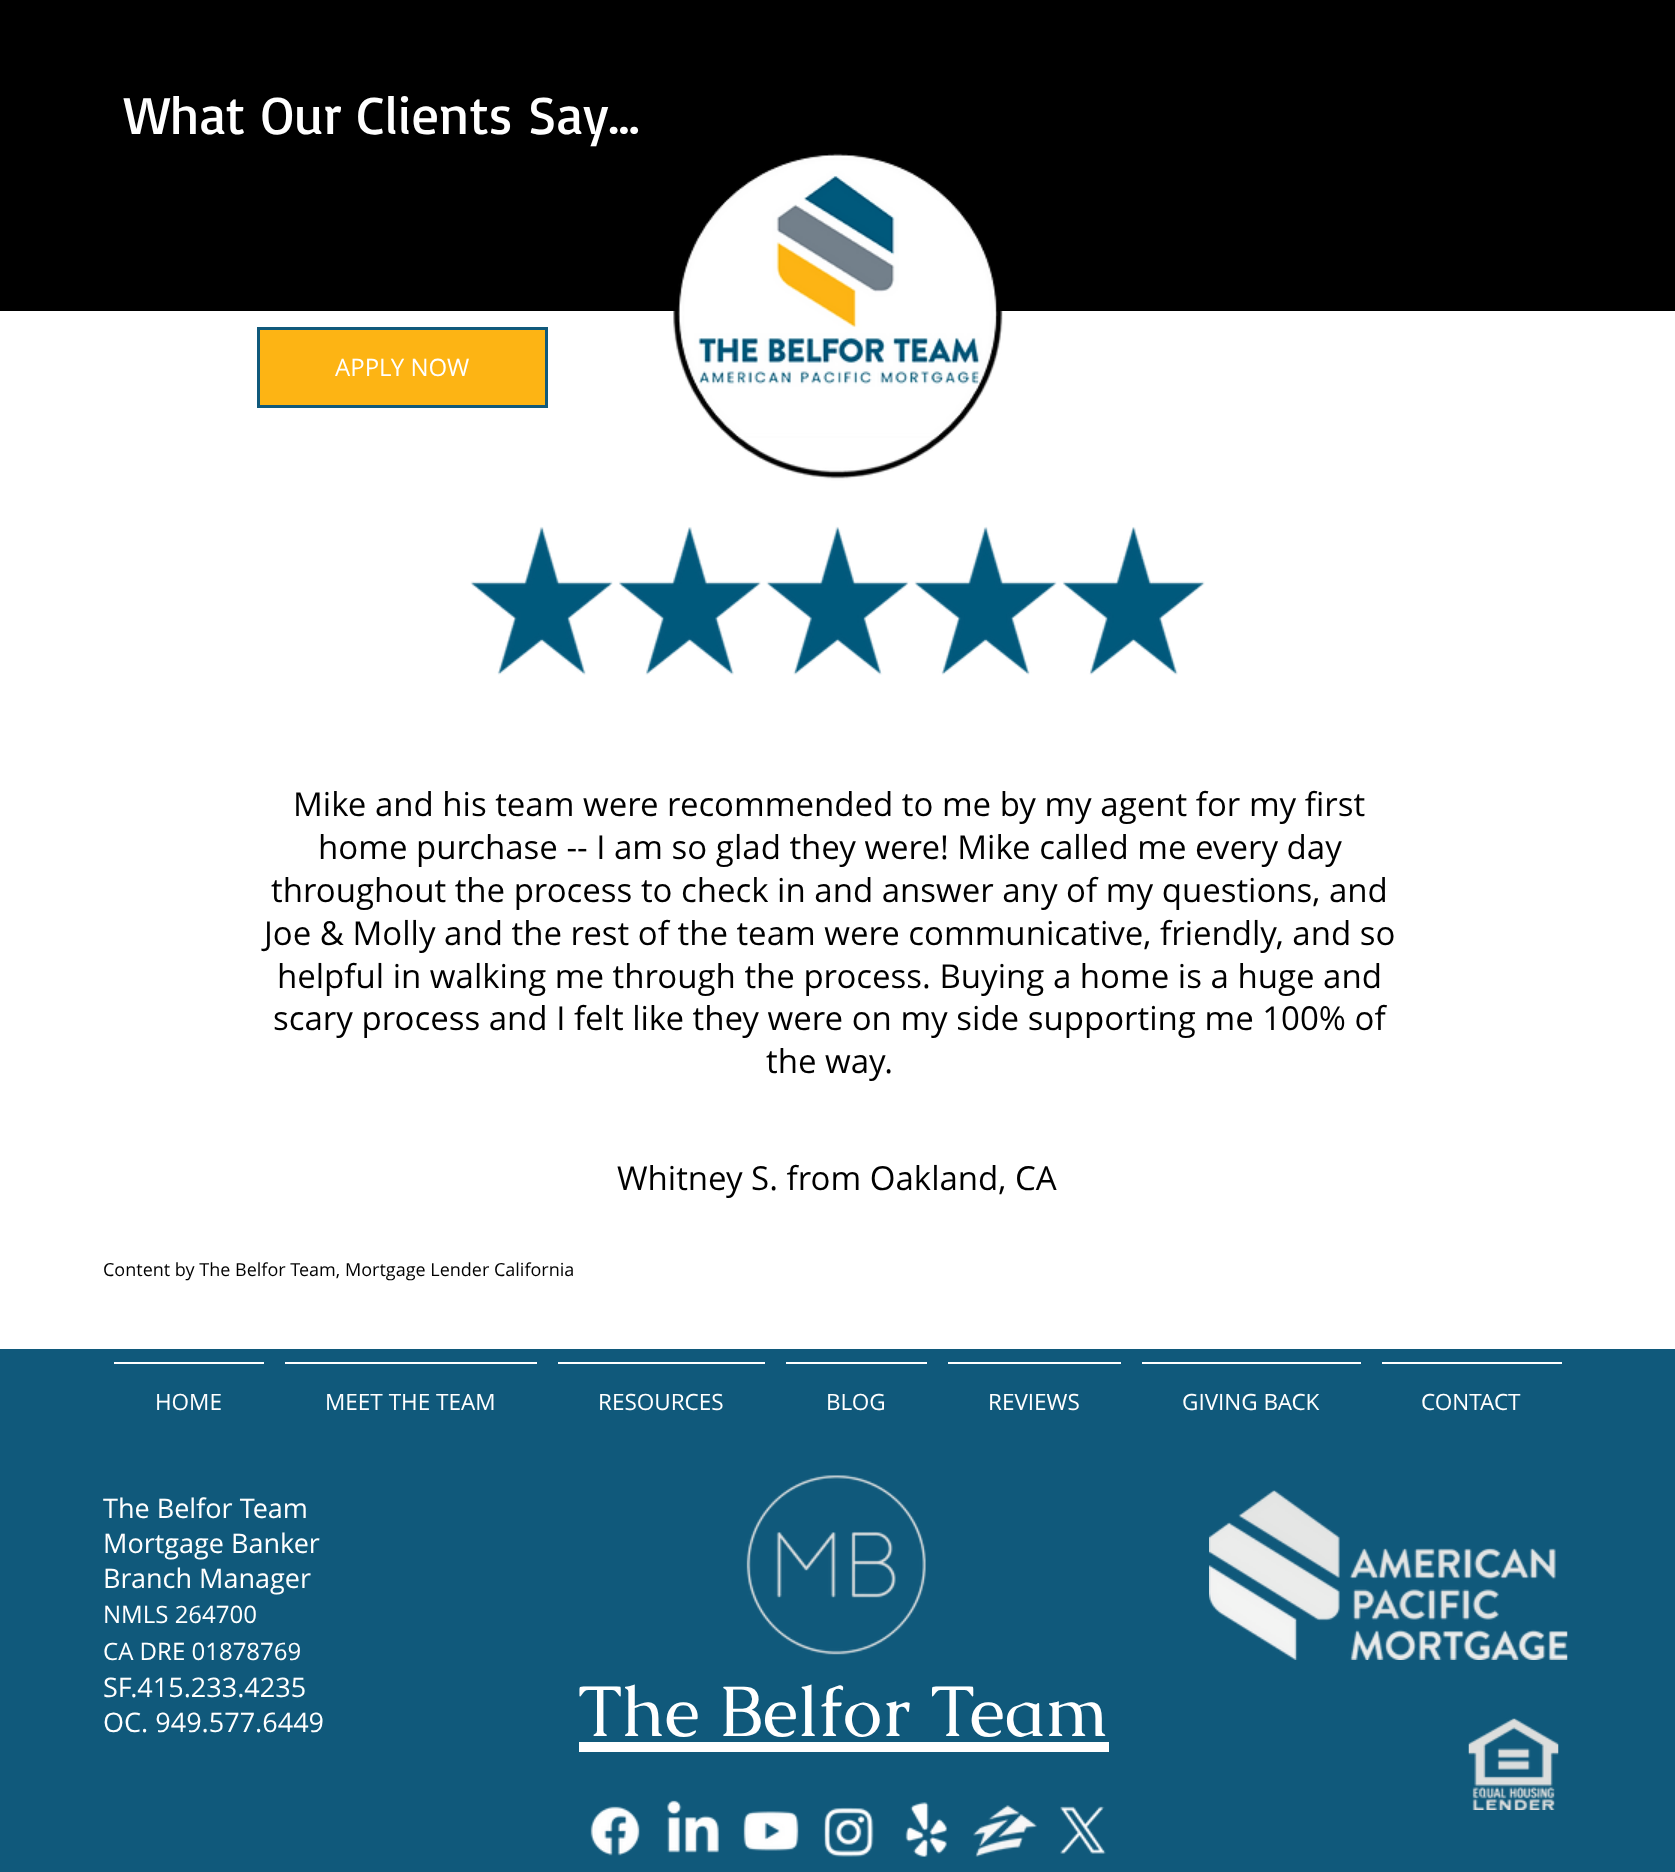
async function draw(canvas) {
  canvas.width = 1675;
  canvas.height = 1872;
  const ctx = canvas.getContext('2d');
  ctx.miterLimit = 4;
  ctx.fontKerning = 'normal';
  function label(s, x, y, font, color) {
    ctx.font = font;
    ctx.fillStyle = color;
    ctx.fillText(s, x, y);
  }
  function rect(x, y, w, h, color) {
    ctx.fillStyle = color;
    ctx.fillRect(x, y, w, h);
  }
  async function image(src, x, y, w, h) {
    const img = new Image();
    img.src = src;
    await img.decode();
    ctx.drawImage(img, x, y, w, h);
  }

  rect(0, 0, 1675, 1872, '#fff');
  rect(0, 0, 1675, 311, '#000');
  label('What Our Clients Say...', 124, 134, '54px Basic', '#fff');
  await image('assets/img1.png', 470, 153, 735, 522);
  label('Mike and his team were recommended to me by my agent for my first', 293, 816, '33px Open Sans', '#000');
  label('home purchase -- I am so glad they were! Mike called me every day', 318, 859, '33px Open Sans', '#000');
  label('throughout the process to check in and answer any of my questions, and', 271, 902, '33px Open Sans', '#000');
  label('Joe & Molly and the rest of the team were communicative, friendly, and so', 264, 945, '33px Open Sans', '#000');
  label('helpful in walking me through the process. Buying a home is a huge and', 277, 988, '33px Open Sans', '#000');
  label('scary process and I felt like they were on my side supporting me 100% of', 273, 1030, '33px Open Sans', '#000');
  label('the way.', 766, 1073, '33px Open Sans', '#000');
  label('Whitney S. from Oakland, CA', 617, 1190, '33px Open Sans', '#000');
  label('Content by The Belfor Team, Mortgage Lender California', 103, 1276, '18px Open Sans', '#000');
  ctx.fillStyle = '#fdb414';
  ctx.beginPath();
  ctx.rect(258.5, 328.5, 288, 78);
  ctx.fill();
  ctx.strokeStyle = '#10597b';
  ctx.lineWidth = 3;
  ctx.stroke();
  label('APPLY NOW', 335, 376, '24px Open Sans', '#fff');
  rect(0, 1349, 1675, 523, '#10597b');
  rect(114, 1362, 150, 2, '#fff');
  label('HOME', 155, 1410, '22.5px Open Sans', '#fff');
  rect(285, 1362, 252, 2, '#fff');
  label('MEET THE TEAM', 325, 1410, '22.5px Open Sans', '#fff');
  rect(558, 1362, 207, 2, '#fff');
  label('RESOURCES', 598, 1410, '22.5px Open Sans', '#fff');
  rect(786, 1362, 141, 2, '#fff');
  label('BLOG', 826, 1410, '22.5px Open Sans', '#fff');
  rect(948, 1362, 173, 2, '#fff');
  label('REVIEWS', 988, 1410, '22.5px Open Sans', '#fff');
  rect(1142, 1362, 219, 2, '#fff');
  label('GIVING BACK', 1182, 1410, '22.5px Open Sans', '#fff');
  rect(1382, 1362, 180, 2, '#fff');
  label('CONTACT', 1421, 1410, '22.5px Open Sans', '#fff');
  label('The Belfor Team', 103, 1518, '27px Open Sans', '#fff');
  label('Mortgage Banker', 103, 1553, '27px Open Sans', '#fff');
  label('Branch Manager', 103, 1588, '27px Open Sans', '#fff');
  label('NMLS 264700', 103, 1623, '24px Open Sans', '#fff');
  label('CA DRE 01878769', 103, 1660, '24px Open Sans', '#fff');
  label('SF.415.233.4235', 103, 1697, '27px Open Sans', '#fff');
  label('OC. 949.577.6449', 103, 1732, '27px Open Sans', '#fff');
  await image('assets/img2.png', 746, 1475, 180, 180);
  label('The Belfor Team', 578, 1736, '72px Caudex', '#fff');
  rect(579, 1742, 530, 10, '#fff');
  await image('assets/img3.png', 1209, 1490, 359, 170);
  await image('assets/img4.png', 1468, 1718, 91, 92);
  await image('assets/img5.png', 590, 1806, 50, 50);
  await image('assets/img6.png', 667, 1800, 52, 53);
  await image('assets/img7.png', 743, 1811, 56, 40);
  await image('assets/img8.png', 823, 1807, 51, 50);
  await image('assets/img9.png', 905, 1802, 43, 55);
  await image('assets/img10.png', 973, 1805, 64, 52);
  await image('assets/img11.png', 1060, 1806, 46, 48);
}

draw(document.querySelector('canvas'));
